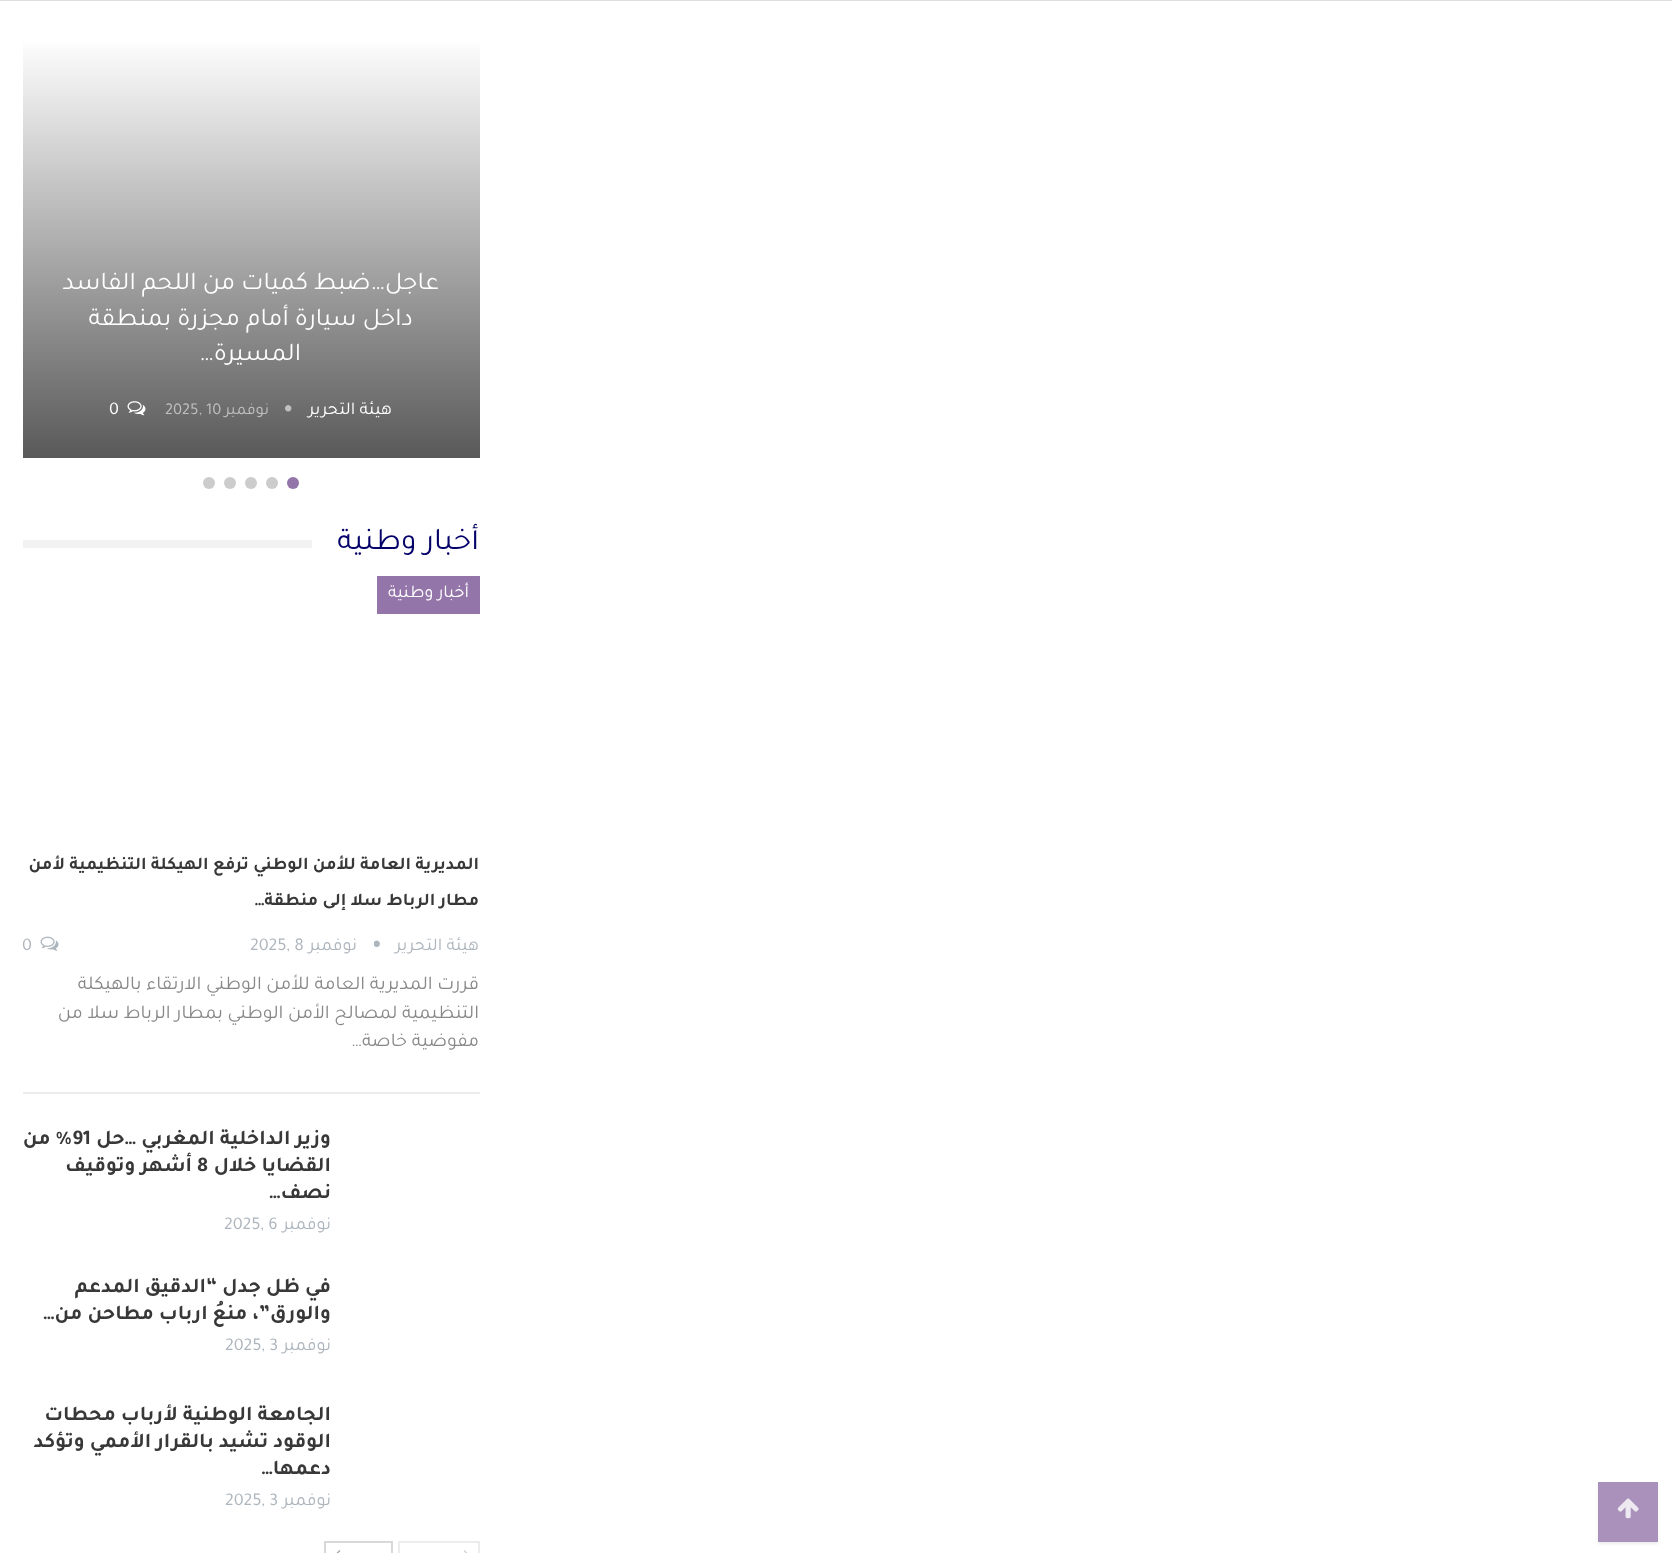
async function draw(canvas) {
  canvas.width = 1672;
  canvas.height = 1553;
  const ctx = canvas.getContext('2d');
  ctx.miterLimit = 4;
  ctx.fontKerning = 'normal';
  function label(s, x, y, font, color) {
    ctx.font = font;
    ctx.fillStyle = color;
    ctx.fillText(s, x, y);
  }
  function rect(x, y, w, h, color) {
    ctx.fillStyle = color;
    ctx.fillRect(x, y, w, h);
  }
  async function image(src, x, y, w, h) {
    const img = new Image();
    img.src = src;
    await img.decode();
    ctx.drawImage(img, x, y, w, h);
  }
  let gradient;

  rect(0, 0, 1672, 1553, '#fff');
  rect(0, 0, 1672, 1, '#dedede');
  ctx.fillStyle = '#33333317';
  ctx.filter = 'blur(1.5px)';
  ctx.beginPath();
  ctx.rect(1598, 1484, 60, 60);
  ctx.fill();
  ctx.filter = 'none';
  rect(1598, 1482, 60, 60, '#a991bb');
  await image('assets/img1.png', 1617, 1498, 22, 21);
  gradient = ctx.createLinearGradient(251, 37, 251, 458);
  gradient.addColorStop(0, '#fff');
  gradient.addColorStop(1, '#595959');
  ctx.fillStyle = gradient;
  ctx.fillRect(23, 43, 457, 415);
  ctx.direction = 'rtl';
  label('عاجل…ضبط كميات من اللحم الفاسد', 439, 289, '25.5px Tajawal', '#fff');
  label('داخل سيارة أمام مجزرة بمنطقة', 413, 325, '25.5px Tajawal', '#fff');
  label('المسيرة…', 301, 360, '25.5px Tajawal', '#fff');
  label('هيئة التحرير', 392, 414, '18px Tajawal', '#fff');
  await image('assets/img2.png', 285, 405, 7, 7);
  label('نوفمبر', 269, 414, '16.5px Tajawal', '#c0c0c0');
  ctx.direction = 'ltr';
  label('10', 206, 414, '16.5px Tajawal', '#c0c0c0');
  label(',', 199, 414, '16.5px Tajawal', '#c0c0c0');
  label('2025', 165, 414, '16.5px Tajawal', '#c0c0c0');
  await image('assets/img3.png', 127, 401, 19, 15);
  label('0', 109, 414, '18px Tajawal', '#fff');
  ctx.fillStyle = '#9375aa';
  ctx.beginPath();
  ctx.arc(293, 483, 6, 0, 2 * Math.PI);
  ctx.fill();
  ctx.fillStyle = '#ccc';
  ctx.beginPath();
  ctx.arc(272, 483, 6, 0, 2 * Math.PI);
  ctx.fill();
  ctx.beginPath();
  ctx.arc(251, 483, 6, 0, 2 * Math.PI);
  ctx.fill();
  ctx.beginPath();
  ctx.arc(230, 483, 6, 0, 2 * Math.PI);
  ctx.fill();
  ctx.beginPath();
  ctx.arc(209, 483, 6, 0, 2 * Math.PI);
  ctx.fill();
  ctx.direction = 'rtl';
  label('أخبار وطنية', 479, 549, '31.5px Tajawal', '#040169');
  rect(23, 540, 289, 8, '#f2f2f2');
  rect(377, 576, 103, 38, '#9375aa');
  label('أخبار وطنية', 469, 597, '18px Tajawal', '#fff');
  label('المديرية العامة للأمن الوطني ترفع الهيكلة التنظيمية لأمن', 479, 869, 'bold 18px Tajawal', '#383838');
  label('مطار الرباط سلا إلى منطقة…', 479, 905, 'bold 18px Tajawal', '#383838');
  label('هيئة التحرير', 479, 950, '18px Tajawal', '#adb5bd');
  await image('assets/img4.png', 374, 940, 6, 7);
  label('نوفمبر', 357, 950, '18px Tajawal', '#adb5bd');
  ctx.direction = 'ltr';
  label('2025, 8', 250, 950, '18px Tajawal', '#adb5bd');
  await image('assets/img5.png', 40, 936, 19, 15);
  label('0', 22, 950, '18px Tajawal', '#adb5bd');
  rect(23, 1092, 457, 2, '#ededed');
  ctx.direction = 'rtl';
  label('قررت المديرية العامة للأمن الوطني الارتقاء بالهيكلة', 479, 989, '19.5px Tajawal', '#888');
  label('التنظيمية لمصالح الأمن الوطني بمطار الرباط سلا من', 479, 1018, '19.5px Tajawal', '#888');
  label('مفوضية خاصة…', 479, 1046, '19.5px Tajawal', '#888');
  label('وزير الداخلية المغربي …حل', 331, 1144, 'bold 21px Tajawal', '#383838');
  ctx.direction = 'ltr';
  label('91', 72, 1144, 'bold 21px Tajawal', '#383838');
  ctx.direction = 'rtl';
  label('% من', 72, 1144, 'bold 21px Tajawal', '#383838');
  label('القضايا خلال', 331, 1171, 'bold 21px Tajawal', '#383838');
  ctx.direction = 'ltr';
  label('8', 197, 1171, 'bold 21px Tajawal', '#383838');
  ctx.direction = 'rtl';
  label('أشهر وتوقيف', 192, 1171, 'bold 21px Tajawal', '#383838');
  label('نصف…', 331, 1198, 'bold 21px Tajawal', '#383838');
  label('نوفمبر', 331, 1229, '18px Tajawal', '#adb5bd');
  ctx.direction = 'ltr';
  label('2025, 6', 224, 1229, '18px Tajawal', '#adb5bd');
  ctx.direction = 'rtl';
  label('في ظل جدل “الدقيق المدعم', 331, 1292, 'bold 21px Tajawal', '#383838');
  label('والورق”، منعُ ارباب مطاحن من…', 331, 1319, 'bold 21px Tajawal', '#383838');
  label('نوفمبر', 331, 1350, '18px Tajawal', '#adb5bd');
  ctx.direction = 'ltr';
  label('2025, 3', 225, 1350, '18px Tajawal', '#adb5bd');
  ctx.direction = 'rtl';
  label('الجامعة الوطنية لأرباب محطات', 331, 1420, 'bold 21px Tajawal', '#383838');
  label('الوقود تشيد بالقرار الأممي وتؤكد', 331, 1447, 'bold 21px Tajawal', '#383838');
  label('دعمها…', 331, 1474, 'bold 21px Tajawal', '#383838');
  label('نوفمبر', 331, 1505, '18px Tajawal', '#adb5bd');
  ctx.direction = 'ltr';
  label('2025, 3', 225, 1505, '18px Tajawal', '#adb5bd');
  ctx.strokeStyle = '#ececec';
  ctx.lineWidth = 2;
  ctx.strokeRect(399, 1542, 80, 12);
  await image('assets/img6.png', 463, 1550, 5, 3);
  ctx.strokeStyle = '#d8d8d8';
  ctx.strokeRect(325, 1542, 67, 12);
  await image('assets/img7.png', 336, 1550, 5, 3);
}

draw(document.querySelector('canvas'));
